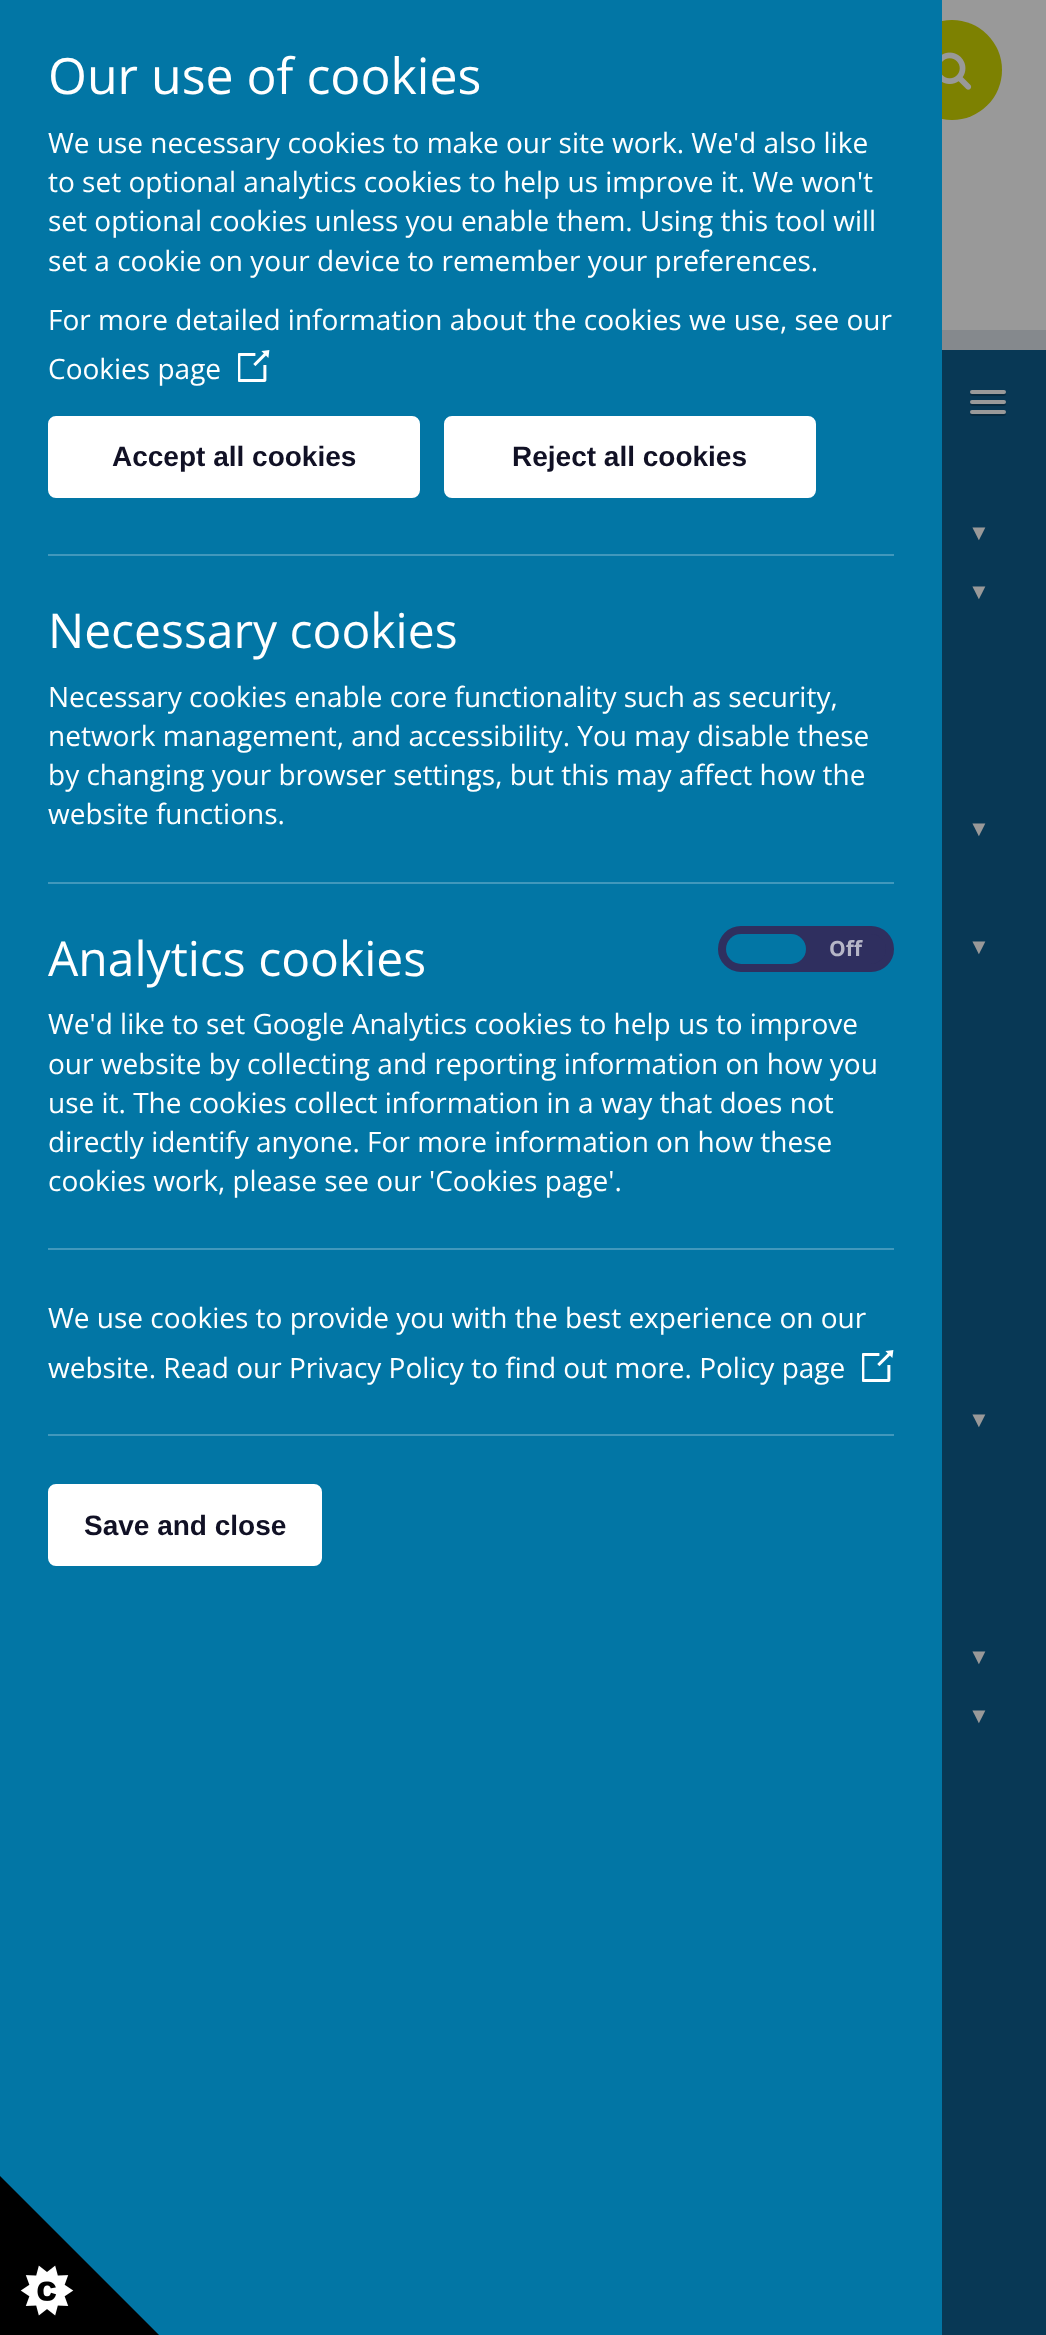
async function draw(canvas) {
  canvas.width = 1046;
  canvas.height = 2335;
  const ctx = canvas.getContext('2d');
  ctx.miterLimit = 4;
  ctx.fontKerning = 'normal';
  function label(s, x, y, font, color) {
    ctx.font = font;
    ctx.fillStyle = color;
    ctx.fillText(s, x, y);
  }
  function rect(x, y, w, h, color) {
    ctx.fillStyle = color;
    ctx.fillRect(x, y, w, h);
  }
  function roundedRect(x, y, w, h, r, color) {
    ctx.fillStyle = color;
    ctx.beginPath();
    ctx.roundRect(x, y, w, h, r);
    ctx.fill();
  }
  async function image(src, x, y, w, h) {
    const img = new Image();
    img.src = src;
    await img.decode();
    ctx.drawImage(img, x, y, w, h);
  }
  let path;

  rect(0, 0, 1046, 2335, '#999');
  ctx.fillStyle = '#7d8101';
  ctx.beginPath();
  ctx.arc(952, 70, 50, 0, 2 * Math.PI);
  ctx.fill();
  rect(0, 0, 942, 2335, '#0276a5');
  label('Our use of cookies', 48, 94, '50px Open Sans', '#fff');
  label('We use necessary cookies to make our site work. We\'d also like', 48, 153, '28px Open Sans', '#fff');
  label('to set optional analytics cookies to help us improve it. We won\'t', 48, 192, '28px Open Sans', '#fff');
  label('set optional cookies unless you enable them. Using this tool will', 48, 231, '28px Open Sans', '#fff');
  label('set a cookie on your device to remember your preferences.', 48, 271, '28px Open Sans', '#fff');
  label('For more detailed information about the cookies we use, see our', 48, 330, '28px Open Sans', '#fff');
  label('Cookies page', 48, 379, '28px Open Sans', '#fff');
  await image('assets/img1.png', 238, 350, 32, 32);
  ctx.beginPath();
  ctx.roundRect(50, 418, 368, 78, 6);
  ctx.fill();
  ctx.strokeStyle = '#fff';
  ctx.lineWidth = 4;
  ctx.stroke();
  label('Accept all cookies', 112, 466, 'bold 28px Liberation Sans', '#111125');
  ctx.fillStyle = '#fff';
  ctx.beginPath();
  ctx.roundRect(446, 418, 368, 78, 6);
  ctx.fill();
  ctx.stroke();
  label('Reject all cookies', 512, 466, 'bold 28px Liberation Sans', '#111125');
  rect(48, 554, 846, 2, '#4198bc');
  label('Necessary cookies', 48, 648, '48px Open Sans', '#fff');
  label('Necessary cookies enable core functionality such as security,', 48, 707, '28px Open Sans', '#fff');
  label('network management, and accessibility. You may disable these', 48, 746, '28px Open Sans', '#fff');
  label('by changing your browser settings, but this may affect how the', 48, 785, '28px Open Sans', '#fff');
  label('website functions.', 48, 824, '28px Open Sans', '#fff');
  rect(48, 882, 846, 2, '#4198bc');
  label('Analytics cookies', 48, 976, '48px Open Sans', '#fff');
  ctx.fillStyle = '#2f2f5f';
  ctx.beginPath();
  ctx.roundRect(722, 930, 168, 38, 19);
  ctx.fill();
  ctx.strokeStyle = '#2f2f5f';
  ctx.lineWidth = 8;
  ctx.stroke();
  roundedRect(726, 934, 80, 30, 15, '#0276a5');
  label('Off', 829, 956, 'bold 21px Open Sans', '#b6b6c7');
  label('We\'d like to set Google Analytics cookies to help us to improve', 48, 1034, '28px Open Sans', '#fff');
  label('our website by collecting and reporting information on how you', 48, 1074, '28px Open Sans', '#fff');
  label('use it. The cookies collect information in a way that does not', 48, 1113, '28px Open Sans', '#fff');
  label('directly identify anyone. For more information on how these', 48, 1152, '28px Open Sans', '#fff');
  label('cookies work, please see our \'Cookies page\'.', 48, 1191, '28px Open Sans', '#fff');
  rect(48, 1248, 846, 2, '#4198bc');
  label('We use cookies to provide you with the best experience on our', 48, 1328, '28px Open Sans', '#fff');
  label('website. Read our Privacy Policy to find out more. Policy page', 48, 1378, '28px Open Sans', '#fff');
  await image('assets/img1.png', 862, 1350, 32, 32);
  rect(48, 1434, 846, 2, '#4198bc');
  ctx.fillStyle = '#fff';
  ctx.beginPath();
  ctx.roundRect(50, 1486, 270, 78, 6);
  ctx.fill();
  ctx.strokeStyle = '#fff';
  ctx.lineWidth = 4;
  ctx.stroke();
  label('Save and close', 84, 1535, 'bold 28px Liberation Sans', '#111125');
  await image('assets/img2.png', 0, 2176, 159, 159);
  await image('assets/img3.png', 942, 52, 30, 38);
  rect(942, 330, 104, 20, '#85898d');
  rect(942, 350, 104, 1985, '#083855');
  ctx.fillStyle = '#062a40';
  path = new Path2D('M970.5 393C968 397 977 396 977.5 396H998.5C999 396 1008 397 1005.5 393C1005.5 393.5 1004.5 394 1004 394H972C971.5 394 970.5 393.5 970.5 393Z');
  ctx.fill(path);
  roundedRect(970, 390, 36, 4, 2, '#999');
  ctx.fillStyle = '#062a40';
  path = new Path2D('M970.5 403C968 407 977 406 977.5 406H998.5C999 406 1008 407 1005.5 403C1005.5 403.5 1004.5 404 1004 404H972C971.5 404 970.5 403.5 970.5 403Z');
  ctx.fill(path);
  roundedRect(970, 400, 36, 4, 2, '#999');
  ctx.fillStyle = '#062a40';
  path = new Path2D('M970.5 413C968 417 977 416 977.5 416H998.5C999 416 1008 417 1005.5 413C1005.5 413.5 1004.5 414 1004 414H972C971.5 414 970.5 413.5 970.5 413Z');
  ctx.fill(path);
  roundedRect(970, 410, 36, 4, 2, '#999');
  label('▼', 968, 540, '22px Liberation Sans', '#999');
  label('▼', 968, 599, '22px Liberation Sans', '#999');
  label('▼', 968, 836, '22px Liberation Sans', '#999');
  label('▼', 968, 954, '22px Liberation Sans', '#999');
  label('▼', 968, 1427, '22px Liberation Sans', '#999');
  label('▼', 968, 1664, '22px Liberation Sans', '#999');
  label('▼', 968, 1723, '22px Liberation Sans', '#999');
}

draw(document.querySelector('canvas'));
